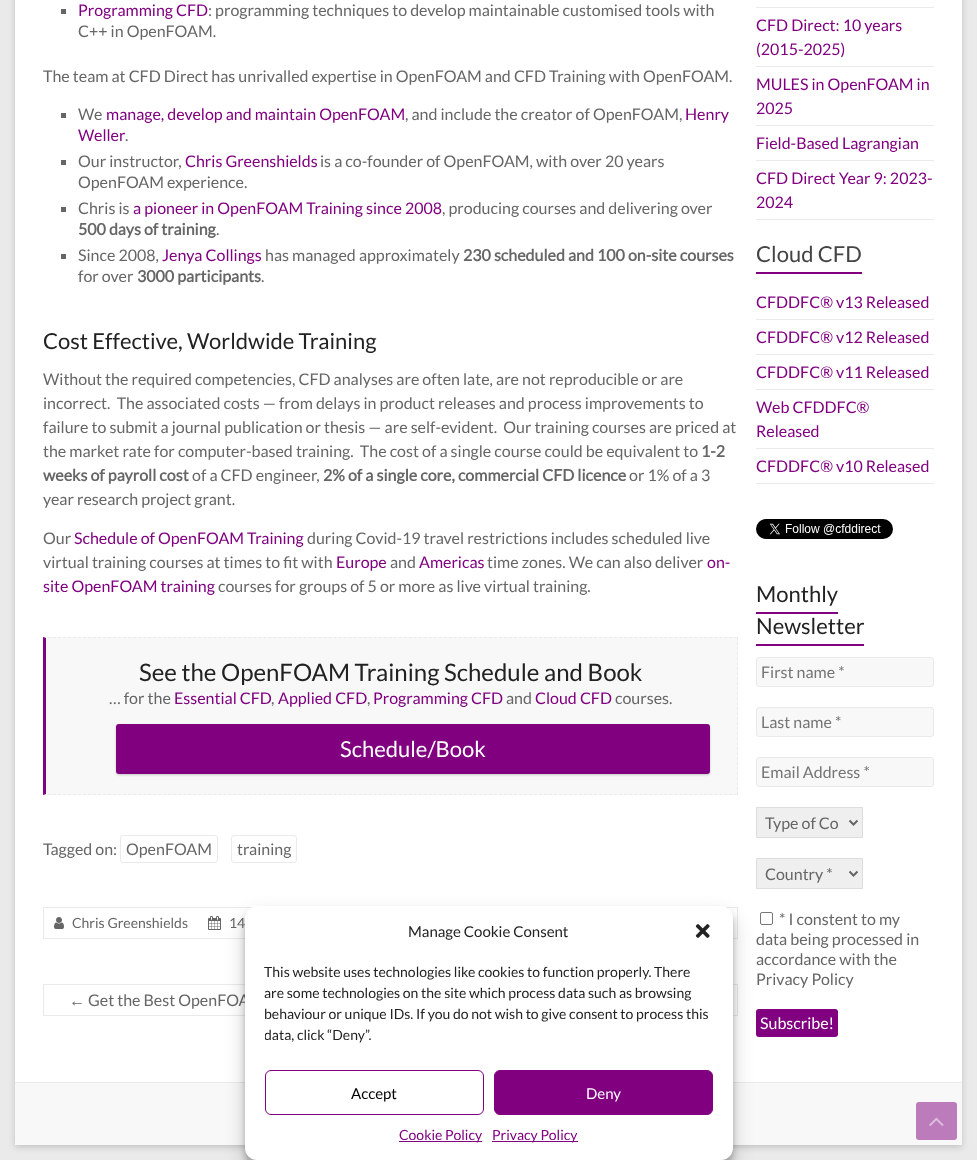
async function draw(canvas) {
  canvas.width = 977;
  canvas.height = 1160;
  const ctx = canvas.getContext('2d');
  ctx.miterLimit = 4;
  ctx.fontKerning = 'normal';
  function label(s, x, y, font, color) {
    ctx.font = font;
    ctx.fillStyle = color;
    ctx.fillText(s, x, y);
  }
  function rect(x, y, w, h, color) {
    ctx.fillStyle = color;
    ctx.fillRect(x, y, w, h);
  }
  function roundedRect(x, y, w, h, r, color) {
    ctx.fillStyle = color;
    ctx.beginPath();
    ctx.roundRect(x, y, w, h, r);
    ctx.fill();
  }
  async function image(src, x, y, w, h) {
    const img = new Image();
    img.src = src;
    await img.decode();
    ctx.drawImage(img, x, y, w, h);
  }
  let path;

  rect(0, 0, 977, 1160, '#eaeaea');
  ctx.fillStyle = '#6464644d';
  ctx.filter = 'blur(3px)';
  ctx.beginPath();
  ctx.rect(15, -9, 947, 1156);
  ctx.fill();
  ctx.filter = 'none';
  rect(15, 0, 947, 1082, '#fff');
  rect(61, 9, 5, 5, '#666');
  label('Programming CFD', 78, 16, '16px Lato', '#800080');
  label(': programming techniques to develop maintainable customised tools with', 208, 16, '16px Lato', '#666');
  label('C++ in OpenFOAM.', 78, 37, '16px Lato', '#666');
  label('The team at CFD Direct has unrivalled expertise in OpenFOAM and CFD Training with OpenFOAM.', 43, 82, '16px Lato', '#666');
  rect(61, 113, 5, 5, '#666');
  label('We', 78, 120, '16px Lato', '#666');
  label('manage, develop and maintain OpenFOAM', 106, 120, '16px Lato', '#800080');
  label(', and include the creator of OpenFOAM,', 405, 120, '16px Lato', '#666');
  label('Henry', 685, 120, '16px Lato', '#800080');
  label('Weller', 78, 141, '16px Lato', '#800080');
  label('.', 125, 141, '16px Lato', '#666');
  rect(61, 160, 5, 5, '#666');
  label('Our instructor,', 78, 167, '16px Lato', '#666');
  label('Chris Greenshields', 185, 167, '16px Lato', '#800080');
  label('is a co-founder of OpenFOAM, with over 20 years', 320, 167, '16px Lato', '#666');
  label('OpenFOAM experience.', 78, 188, '16px Lato', '#666');
  rect(61, 207, 5, 5, '#666');
  label('Chris is', 78, 214, '16px Lato', '#666');
  label('a pioneer in OpenFOAM Training since 2008', 133, 214, '16px Lato', '#800080');
  label(', producing courses and delivering over', 442, 214, '16px Lato', '#666');
  label('500 days of training', 78, 235, 'bold 16px Lato', '#666');
  label('.', 216, 235, '16px Lato', '#666');
  rect(61, 254, 5, 5, '#666');
  label('Since 2008,', 78, 261, '16px Lato', '#666');
  label('Jenya Collings', 162, 261, '16px Lato', '#800080');
  label('has managed approximately', 265, 261, '16px Lato', '#666');
  label('230 scheduled and 100 on-site courses', 463, 261, 'bold 16px Lato', '#666');
  label('for over', 78, 282, '16px Lato', '#666');
  label('3000 participants', 137, 282, 'bold 16px Lato', '#666');
  label('.', 261, 282, '16px Lato', '#666');
  label('Cost Effective, Worldwide Training', 43, 349, '22px Lato', '#222');
  label('Without the required competencies, CFD analyses are often late, are not reproducible or are', 43, 385, '16px Lato', '#666');
  label('incorrect.  The associated costs — from delays in product releases and process improvements to', 43, 409, '16px Lato', '#666');
  label('failure to submit a journal publication or thesis — are self-evident.  Our training courses are priced at', 43, 433, '16px Lato', '#666');
  label('the market rate for computer-based training.  The cost of a single course could be equivalent to', 43, 457, '16px Lato', '#666');
  label('1-2', 701, 457, 'bold 16px Lato', '#666');
  label('weeks of payroll cost', 43, 481, 'bold 16px Lato', '#666');
  label('of a CFD engineer,', 192, 481, '16px Lato', '#666');
  label('2% of a single core, commercial CFD licence', 323, 481, 'bold 16px Lato', '#666');
  label('or 1% of a 3', 629, 481, '16px Lato', '#666');
  label('year research project grant.', 43, 505, '16px Lato', '#666');
  label('Our', 43, 544, '16px Lato', '#666');
  label('Schedule of OpenFOAM Training', 74, 544, '16px Lato', '#800080');
  label('during Covid-19 travel restrictions includes scheduled live', 307, 544, '16px Lato', '#666');
  label('virtual training courses at times to fit with', 43, 568, '16px Lato', '#666');
  label('Europe', 336, 568, '16px Lato', '#800080');
  label('and', 390, 568, '16px Lato', '#666');
  label('Americas', 419, 568, '16px Lato', '#800080');
  label('time zones. We can also deliver', 487, 568, '16px Lato', '#666');
  label('on-', 707, 568, '16px Lato', '#800080');
  label('site OpenFOAM training', 43, 592, '16px Lato', '#800080');
  label('courses for groups of 5 or more as live virtual training.', 218, 592, '16px Lato', '#666');
  rect(46, 637, 692, 158, '#f8f8f8');
  path = new Path2D('M43 637.5H738');
  ctx.strokeStyle = '#eaeaea';
  ctx.setLineDash([3, 2.01]);
  ctx.stroke(path);
  path = new Path2D('M737.5 637V795');
  ctx.setLineDash([3, 2]);
  ctx.stroke(path);
  path = new Path2D('M43 794.5H738');
  ctx.setLineDash([3, 2.01]);
  ctx.stroke(path);
  ctx.fillStyle = '#800080';
  path = new Path2D('M43 795V637L46 638V794Z');
  ctx.fill(path);
  label('See the OpenFOAM Training Schedule and Book', 139, 681, '24px Lato', '#222');
  label('… for the', 109, 704, '16px Lato', '#666');
  label('Essential CFD', 174, 704, '16px Lato', '#800080');
  label(',', 271, 704, '16px Lato', '#666');
  label('Applied CFD', 278, 704, '16px Lato', '#800080');
  label(',', 367, 704, '16px Lato', '#666');
  label('Programming CFD', 373, 704, '16px Lato', '#800080');
  label('and', 506, 704, '16px Lato', '#666');
  label('Cloud CFD', 535, 704, '16px Lato', '#800080');
  label('courses.', 615, 704, '16px Lato', '#666');
  ctx.fillStyle = '#00000033';
  ctx.filter = 'blur(1px)';
  ctx.beginPath();
  ctx.roundRect(116, 725, 594, 50, 3);
  ctx.fill();
  ctx.filter = 'none';
  roundedRect(116, 724, 594, 50, 3, '#800080');
  label('Schedule/Book', 340, 757, '22px Lato', '#fff');
  label('Tagged on:', 43, 855, '16px Lato', '#666');
  ctx.beginPath();
  ctx.roundRect(120.5, 835.5, 97, 27, 2.5);
  ctx.setLineDash([]);
  ctx.stroke();
  label('OpenFOAM', 126, 855, '16px Lato', '#666');
  ctx.beginPath();
  ctx.roundRect(231.5, 835.5, 65, 27, 2.5);
  ctx.stroke();
  label('training', 237, 855, '16px Lato', '#666');
  ctx.strokeRect(43.5, 907.5, 694, 31);
  await image('assets/img1.png', 54, 917, 10, 12);
  label('Chris Greenshields', 72, 928, '14px Lato', '#666');
  await image('assets/img2.png', 208, 916, 13, 14);
  label('14', 229, 928, '14px Lato', '#666');
  ctx.strokeRect(43.5, 984.5, 306, 31);
  label('←', 69, 1006, '16px Liberation Sans', '#666');
  label('Get the Best OpenFOA', 88, 1006, '16px Lato', '#666');
  ctx.strokeRect(493.5, 984.5, 244, 31);
  rect(756, 7, 178, 1, '#eaeaea');
  rect(756, 66, 178, 1, '#eaeaea');
  label('CFD Direct: 10 years', 756, 31, '16px Lato', '#800080');
  label('(2015-2025)', 756, 55, '16px Lato', '#800080');
  rect(756, 125, 178, 1, '#eaeaea');
  label('MULES in OpenFOAM in', 756, 90, '16px Lato', '#800080');
  label('2025', 756, 114, '16px Lato', '#800080');
  rect(756, 160, 178, 1, '#eaeaea');
  label('Field-Based Lagrangian', 756, 149, '16px Lato', '#800080');
  rect(756, 219, 178, 1, '#eaeaea');
  label('CFD Direct Year 9: 2023-', 756, 184, '16px Lato', '#800080');
  label('2024', 756, 208, '16px Lato', '#800080');
  label('Cloud CFD', 756, 262, '22px Lato', '#444');
  rect(756, 272, 106, 2, '#800080');
  rect(756, 319, 178, 1, '#eaeaea');
  label('CFDDFC® v13 Released', 756, 308, '16px Lato', '#800080');
  rect(756, 354, 178, 1, '#eaeaea');
  label('CFDDFC® v12 Released', 756, 343, '16px Lato', '#800080');
  rect(756, 389, 178, 1, '#eaeaea');
  label('CFDDFC® v11 Released', 756, 378, '16px Lato', '#800080');
  rect(756, 448, 178, 1, '#eaeaea');
  label('Web CFDDFC®', 756, 413, '16px Lato', '#800080');
  label('Released', 756, 437, '16px Lato', '#800080');
  rect(756, 483, 178, 1, '#eaeaea');
  label('CFDDFC® v10 Released', 756, 472, '16px Lato', '#800080');
  await image('assets/img3.png', 756, 519, 137, 20);
  label('Monthly', 756, 602, '22px Lato', '#222');
  label('Newsletter', 756, 634, '22px Lato', '#222');
  rect(756, 612, 82, 2, '#800080');
  rect(756, 644, 108, 2, '#800080');
  ctx.fillStyle = '#f8f8f8';
  ctx.beginPath();
  ctx.roundRect(756.5, 657.5, 177, 29, 2.5);
  ctx.fill();
  ctx.stroke();
  label('First name *', 761, 678, '16px Lato', '#757575');
  ctx.fillStyle = '#f8f8f8';
  ctx.beginPath();
  ctx.roundRect(756.5, 707.5, 177, 29, 2.5);
  ctx.fill();
  ctx.stroke();
  label('Last name *', 761, 728, '16px Lato', '#757575');
  ctx.fillStyle = '#f8f8f8';
  ctx.beginPath();
  ctx.roundRect(756.5, 757.5, 177, 29, 2.5);
  ctx.fill();
  ctx.stroke();
  label('Email Address *', 761, 778, '16px Lato', '#757575');
  ctx.fillStyle = '#efefef';
  ctx.beginPath();
  ctx.rect(756.5, 807.5, 106, 30);
  ctx.fill();
  ctx.strokeStyle = '#ddd';
  ctx.stroke();
  path = new Path2D('M849.5 820.5L853.5 824.5L857.5 820.5');
  ctx.strokeStyle = '#666';
  ctx.lineWidth = 2;
  ctx.stroke(path);
  label('Type of Co', 765, 829, '16px Lato', '#666');
  ctx.fillStyle = '#efefef';
  ctx.beginPath();
  ctx.rect(756.5, 858.5, 106, 30);
  ctx.fill();
  ctx.strokeStyle = '#ddd';
  ctx.lineWidth = 1;
  ctx.stroke();
  path = new Path2D('M849.5 871.5L853.5 875.5L857.5 871.5');
  ctx.strokeStyle = '#666';
  ctx.lineWidth = 2;
  ctx.stroke(path);
  label('Country *', 765, 880, '16px Lato', '#666');
  ctx.beginPath();
  ctx.roundRect(760.5, 912.5, 12, 12, 1.5);
  ctx.strokeStyle = '#767676';
  ctx.lineWidth = 1;
  ctx.stroke();
  label('* I constent to my', 779, 925, '16px Lato', '#666');
  label('data being processed in', 756, 945, '16px Lato', '#666');
  label('accordance with the', 756, 965, '16px Lato', '#666');
  label('Privacy Policy', 756, 985, '16px Lato', '#666');
  roundedRect(756, 1009, 82, 28, 3, '#800080');
  label('Subscribe!', 760, 1029, '16px Lato', '#fff');
  rect(15, 1083, 947, 62, '#f8f8f8');
  rect(15, 1082, 947, 1, '#eaeaea');
  roundedRect(916, 1102, 41, 38, 3, '#bc7cbc');
  await image('assets/img4.png', 929, 1117, 15, 9);
  ctx.fillStyle = '#0000003b';
  ctx.filter = 'blur(3px)';
  ctx.beginPath();
  ctx.roundRect(245, 912, 488, 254, 12);
  ctx.fill();
  ctx.filter = 'none';
  ctx.fillStyle = '#00000030';
  ctx.filter = 'blur(10px)';
  ctx.beginPath();
  ctx.roundRect(245, 916, 488, 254, 12);
  ctx.fill();
  ctx.filter = 'none';
  roundedRect(245, 906, 488, 254, 12, '#fff');
  label('Manage Cookie Consent', 408, 937, '15px Lato', '#222');
  await image('assets/img5.png', 695, 924, 15, 14);
  label('This website uses technologies like cookies to function properly. There', 264, 977, '14px Lato', '#222');
  label('are some technologies on the site which process data such as browsing', 264, 998, '14px Lato', '#222');
  label('behaviour or unique IDs. If you do not wish to give consent to process this', 264, 1019, '14px Lato', '#222');
  ctx.save();
  ctx.beginPath();
  ctx.rect(265, 961, 448, 89);
  ctx.clip();
  label('data, click “Deny”.', 264, 1040, '14px Lato', '#222');
  ctx.restore();
  ctx.beginPath();
  ctx.roundRect(265.5, 1070.5, 218, 44, 5.5);
  ctx.strokeStyle = '#800080';
  ctx.stroke();
  label('Accept', 351, 1099, '15px Lato', '#000');
  ctx.fillStyle = '#800080';
  ctx.beginPath();
  ctx.roundRect(494.5, 1070.5, 218, 44, 5.5);
  ctx.fill();
  ctx.stroke();
  label('Deny', 586, 1099, '15px Lato', '#fff');
  rect(399, 1141, 83, 1, '#800080');
  label('Cookie Policy', 399, 1140, '14px Lato', '#800080');
  rect(492, 1141, 86, 1, '#800080');
  label('Privacy Policy', 492, 1140, '14px Lato', '#800080');
}

draw(document.querySelector('canvas'));
